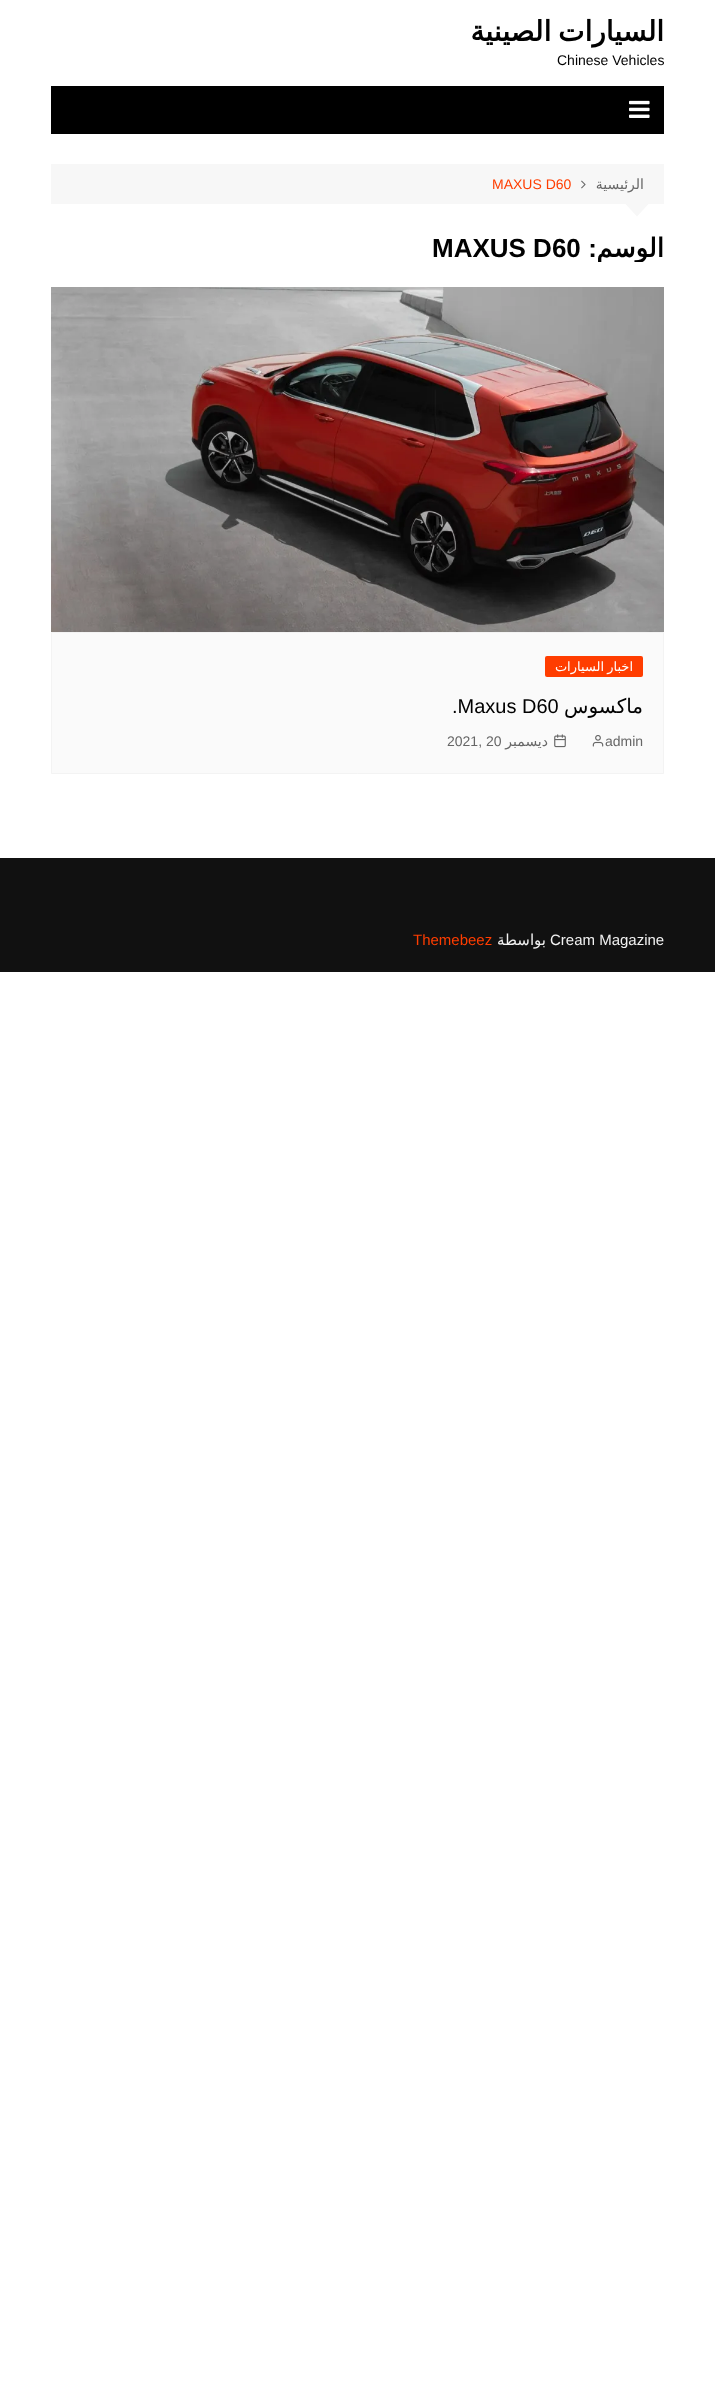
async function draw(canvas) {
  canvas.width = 715;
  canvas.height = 2386;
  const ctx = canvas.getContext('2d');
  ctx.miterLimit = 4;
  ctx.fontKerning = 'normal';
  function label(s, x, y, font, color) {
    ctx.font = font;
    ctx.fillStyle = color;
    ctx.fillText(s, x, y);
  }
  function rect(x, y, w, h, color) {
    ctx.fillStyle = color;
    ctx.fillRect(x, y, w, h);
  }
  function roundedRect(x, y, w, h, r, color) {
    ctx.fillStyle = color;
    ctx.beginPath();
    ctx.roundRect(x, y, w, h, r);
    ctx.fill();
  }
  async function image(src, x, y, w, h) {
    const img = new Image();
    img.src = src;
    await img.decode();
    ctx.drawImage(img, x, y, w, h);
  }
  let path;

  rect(0, 0, 715, 2386, '#fff');
  ctx.wordSpacing = '-2px';
  ctx.direction = 'rtl';
  label('السيارات الصينية', 664, 41, 'bold 28px DejaVu Sans', '#010101');
  ctx.wordSpacing = '0px';
  ctx.direction = 'ltr';
  label('Chinese Vehicles', 557, 65, '14px Liberation Sans', '#010101');
  rect(51, 86, 613, 48, '#000');
  await image('assets/img1.png', 629, 100, 21, 18);
  rect(51, 164, 613, 40, '#f7f7f7');
  label('MAXUS D60', 492, 189, '14px Liberation Sans', '#ff3d00');
  await image('assets/img2.png', 581, 180, 5, 9);
  ctx.direction = 'rtl';
  label('الرئيسية', 644, 189, '14px DejaVu Sans', '#666');
  ctx.fillStyle = '#f7f7f7';
  path = new Path2D('M625 203.5H649L637 216.5Z');
  ctx.fill(path);
  ctx.direction = 'ltr';
  label('MAXUS D60', 432, 257, 'bold 26px Liberation Sans', '#010101');
  ctx.direction = 'rtl';
  label(':', 597, 257, 'bold 26px Liberation Sans', '#010101');
  ctx.save();
  ctx.beginPath();
  ctx.rect(51, 234, 613, 28);
  ctx.clip();
  label('الوسم', 664, 257, 'bold 26px DejaVu Sans', '#010101');
  ctx.restore();
  await image('assets/img3.png', 51, 287, 613, 345);
  ctx.fillStyle = '#fafafa';
  ctx.beginPath();
  ctx.rect(51.5, 632.5, 612, 141);
  ctx.fill();
  ctx.strokeStyle = '#f3f3f3';
  ctx.stroke();
  roundedRect(545, 656, 98, 21, 2, '#ff3d00');
  ctx.wordSpacing = '-1px';
  label('اخبار السيارات', 633, 671, '13px DejaVu Sans', '#fff');
  ctx.wordSpacing = '0px';
  ctx.direction = 'ltr';
  label('.Maxus D60', 452, 713, '20px Liberation Sans', '#010101');
  ctx.direction = 'rtl';
  label('ماكسوس', 643, 713, '20px DejaVu Sans', '#010101');
  ctx.direction = 'ltr';
  label('2021, 20', 447, 746, '14px Liberation Sans', '#666');
  ctx.direction = 'rtl';
  label('ديسمبر', 548, 746, '14px DejaVu Sans', '#666');
  await image('assets/img4.png', 554, 734, 12, 14);
  await image('assets/img5.png', 592, 735, 12, 12);
  ctx.direction = 'ltr';
  label('admin', 605, 746, '14px Liberation Sans', '#666');
  rect(0, 858, 715, 114, '#111');
  label('Themebeez', 413, 945, '15px Liberation Sans', '#ff3d00');
  ctx.direction = 'rtl';
  label('بواسطة', 546, 945, '15px DejaVu Sans', '#f1f1f1');
  ctx.direction = 'ltr';
  label('Cream Magazine', 550, 945, '15px Liberation Sans', '#f1f1f1');
}

draw(document.querySelector('canvas'));
